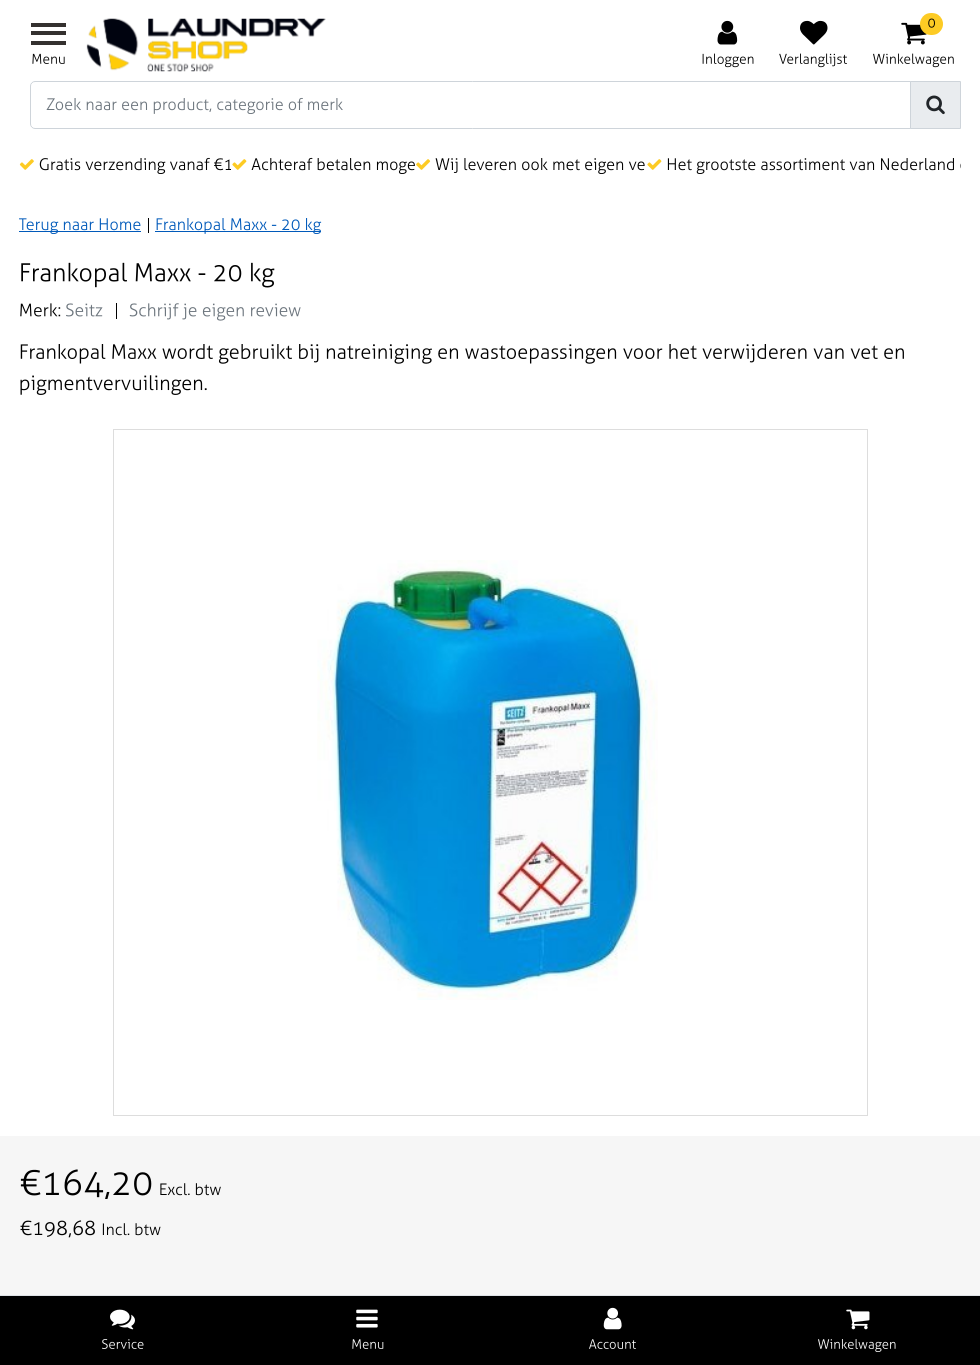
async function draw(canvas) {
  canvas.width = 980;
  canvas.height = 1365;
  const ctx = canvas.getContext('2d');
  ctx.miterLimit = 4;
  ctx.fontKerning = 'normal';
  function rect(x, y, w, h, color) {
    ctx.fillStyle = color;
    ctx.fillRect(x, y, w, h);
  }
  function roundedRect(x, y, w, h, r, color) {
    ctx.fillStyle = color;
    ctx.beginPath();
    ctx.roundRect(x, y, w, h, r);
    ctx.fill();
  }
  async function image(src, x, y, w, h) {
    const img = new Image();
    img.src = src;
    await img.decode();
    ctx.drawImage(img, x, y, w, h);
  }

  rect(0, 0, 980, 1365, '#fff');
  rect(31, 23, 35, 4, '#34312f');
  rect(31, 31, 35, 4, '#34312f');
  rect(31, 41, 35, 4, '#34312f');
  await image('assets/img1.png', 32, 53, 33, 11);
  await image('assets/img2.png', 86, 18, 240, 54);
  await image('assets/img3.png', 717, 20, 21, 25);
  await image('assets/img4.png', 702, 53, 52, 15);
  await image('assets/img5.png', 800, 20, 28, 25);
  await image('assets/img6.png', 779, 53, 68, 15);
  await image('assets/img7.png', 901, 22, 26, 23);
  roundedRect(920, 13, 23, 22, 11, '#fdcb24');
  await image('assets/img8.png', 928, 18, 7, 10);
  await image('assets/img9.png', 873, 53, 81, 15);
  ctx.fillStyle = '#e9ecef';
  ctx.beginPath();
  ctx.rect(910.5, 81.5, 50, 47);
  ctx.fill();
  ctx.strokeStyle = '#ced4da';
  ctx.stroke();
  ctx.beginPath();
  ctx.roundRect(30.5, 81.5, 880, 47, [4.5, 0, 0, 4.5]);
  ctx.stroke();
  await image('assets/img10.png', 46, 97, 297, 17);
  await image('assets/img11.png', 926, 95, 19, 20);
  await image('assets/img12.png', 19, 159, 15, 11);
  await image('assets/img13.png', 39, 157, 192, 17);
  await image('assets/img14.png', 232, 159, 15, 11);
  await image('assets/img15.png', 251, 157, 164, 17);
  await image('assets/img16.png', 416, 159, 15, 11);
  await image('assets/img17.png', 435, 158, 210, 16);
  await image('assets/img14.png', 647, 159, 15, 11);
  await image('assets/img18.png', 667, 158, 294, 16);
  rect(19, 231, 122, 1, '#015aba');
  await image('assets/img19.png', 19, 218, 122, 16);
  rect(148, 218, 1, 15, '#000');
  rect(155, 231, 166, 1, '#015aba');
  await image('assets/img20.png', 156, 218, 166, 16);
  await image('assets/img21.png', 21, 262, 254, 26);
  await image('assets/img22.png', 20, 303, 41, 14);
  await image('assets/img23.png', 66, 303, 37, 14);
  rect(116, 303, 1, 16, '#000');
  await image('assets/img24.png', 129, 303, 172, 18);
  await image('assets/img25.png', 20, 344, 884, 20);
  await image('assets/img26.png', 20, 375, 187, 20);
  ctx.strokeStyle = '#ddd';
  ctx.strokeRect(113.5, 429.5, 754, 686);
  await image('assets/img27.png', 317, 560, 341, 440);
  rect(0, 1136, 980, 159, '#f6f6f6');
  await image('assets/img28.png', 20, 1169, 132, 30);
  await image('assets/img29.png', 160, 1183, 61, 13);
  await image('assets/img30.png', 20, 1220, 75, 18);
  await image('assets/img31.png', 102, 1223, 59, 13);
  rect(0, 1295, 980, 1, '#dee2e6');
  rect(0, 1296, 980, 69, '#000');
  await image('assets/img32.png', 110, 1309, 25, 21);
  await image('assets/img33.png', 102, 1339, 42, 10);
  await image('assets/img34.png', 356, 1309, 22, 19);
  await image('assets/img35.png', 352, 1339, 32, 10);
  await image('assets/img36.png', 603, 1307, 19, 23);
  await image('assets/img37.png', 589, 1339, 47, 10);
  await image('assets/img38.png', 846, 1309, 24, 21);
  await image('assets/img39.png', 818, 1339, 78, 13);
}

draw(document.querySelector('canvas'));
